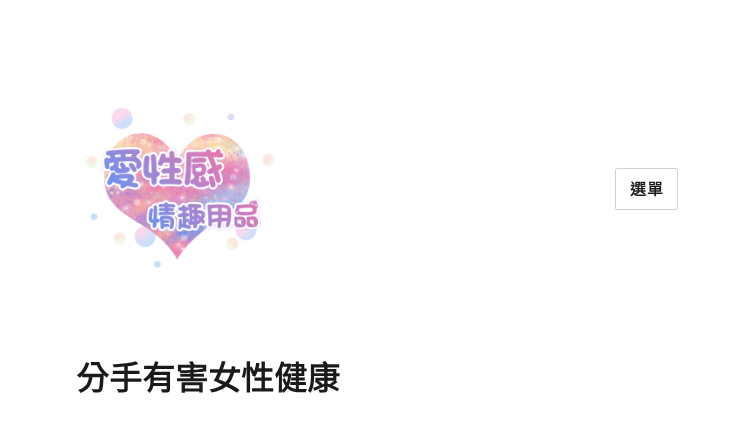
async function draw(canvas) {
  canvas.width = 754;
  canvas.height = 421;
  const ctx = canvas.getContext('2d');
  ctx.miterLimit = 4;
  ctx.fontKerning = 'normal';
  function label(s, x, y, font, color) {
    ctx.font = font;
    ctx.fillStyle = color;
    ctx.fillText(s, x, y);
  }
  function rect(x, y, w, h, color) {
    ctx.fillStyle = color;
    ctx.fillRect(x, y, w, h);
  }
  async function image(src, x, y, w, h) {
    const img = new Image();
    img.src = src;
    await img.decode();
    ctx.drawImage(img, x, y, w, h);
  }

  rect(0, 0, 754, 421, '#fff');
  await image('assets/img1.png', 85, 107, 190, 161);
  ctx.beginPath();
  ctx.roundRect(615.5, 168.5, 62, 41, 1.5);
  ctx.strokeStyle = '#d1d1d1';
  ctx.stroke();
  ctx.letterSpacing = '1px';
  label('選單', 630, 195, 'bold 16px Noto Sans CJK TC', '#1a1a1a');
  ctx.letterSpacing = '0px';
  label('分手有害女性健康', 76, 390, 'bold 33px Noto Sans CJK TC', '#1a1a1a');
}

draw(document.querySelector('canvas'));
